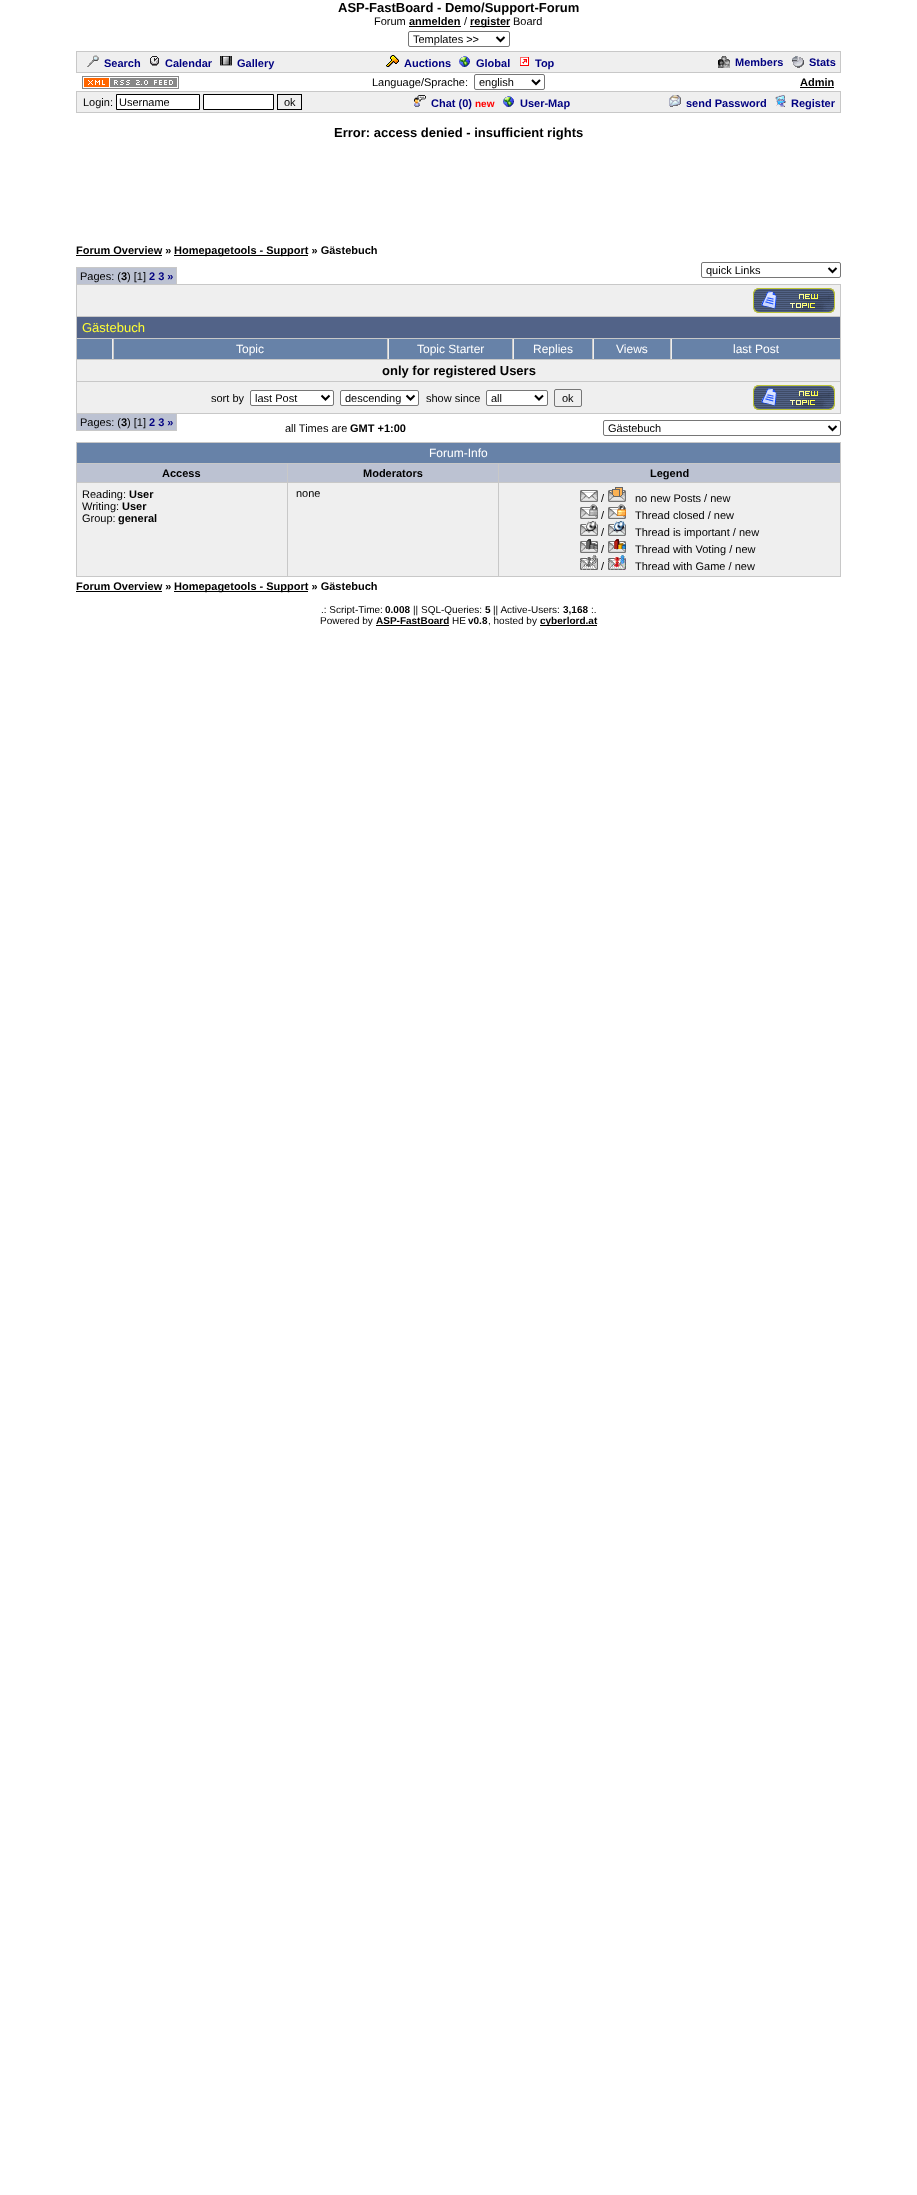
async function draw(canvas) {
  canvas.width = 917;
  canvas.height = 2195;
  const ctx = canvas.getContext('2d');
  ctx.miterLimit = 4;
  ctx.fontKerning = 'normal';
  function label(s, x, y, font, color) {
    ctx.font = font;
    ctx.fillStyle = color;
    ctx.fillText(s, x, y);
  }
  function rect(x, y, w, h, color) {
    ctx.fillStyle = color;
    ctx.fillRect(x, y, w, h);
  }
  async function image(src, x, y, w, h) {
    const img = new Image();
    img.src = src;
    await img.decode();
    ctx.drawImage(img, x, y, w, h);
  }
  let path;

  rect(0, 0, 917, 2195, '#fff');
  label('ASP-FastBoard - Demo/Support-Forum', 338, 12, 'bold 13px Liberation Sans', '#000');
  label('Forum', 374, 25, '11px Liberation Sans', '#000');
  label('anmelden', 409, 25, 'bold 11px Liberation Sans', '#000');
  rect(409, 26, 52, 1, '#000');
  label('/', 464, 25, '11px Liberation Sans', '#000');
  rect(470, 26, 40, 1, '#000');
  label('register', 470, 25, 'bold 11px Liberation Sans', '#000');
  label('Board', 513, 25, '11px Liberation Sans', '#000');
  ctx.beginPath();
  ctx.roundRect(408.5, 31.5, 101, 15, 1.5);
  ctx.strokeStyle = '#767676';
  ctx.stroke();
  path = new Path2D('M496.5 37L500.5 41L504.5 37');
  ctx.strokeStyle = '#000';
  ctx.lineWidth = 2;
  ctx.stroke(path);
  label('Templates >>', 413, 43, '11px Liberation Sans', '#000');
  rect(77, 52, 763, 20, '#efefef');
  rect(76, 51, 765, 1, '#c8c8c8');
  rect(840, 51, 1, 22, '#c8c8c8');
  rect(76, 72, 765, 1, '#c8c8c8');
  rect(76, 51, 1, 22, '#c8c8c8');
  await image('assets/img1.png', 87, 55, 12, 12);
  label('Search', 104, 67, 'bold 11px Liberation Sans', '#000080');
  await image('assets/img2.png', 150, 56, 9, 10);
  label('Calendar', 165, 67, 'bold 11px Liberation Sans', '#000080');
  await image('assets/img3.png', 220, 56, 12, 10);
  label('Gallery', 237, 67, 'bold 11px Liberation Sans', '#000080');
  await image('assets/img4.png', 386, 55, 13, 12);
  label('Auctions', 404, 67, 'bold 11px Liberation Sans', '#000080');
  await image('assets/img5.png', 459, 56, 11, 11);
  label('Global', 476, 67, 'bold 11px Liberation Sans', '#000080');
  await image('assets/img6.png', 520, 57, 9, 9);
  label('Top', 535, 67, 'bold 11px Liberation Sans', '#000080');
  await image('assets/img7.png', 718, 56, 12, 12);
  label('Members', 735, 66, 'bold 11px Liberation Sans', '#000080');
  await image('assets/img8.png', 792, 56, 12, 12);
  label('Stats', 809, 66, 'bold 11px Liberation Sans', '#000080');
  await image('assets/img9.png', 82, 76, 97, 13);
  label('Language/Sprache:', 372, 86, '11px Liberation Sans', '#000');
  ctx.beginPath();
  ctx.roundRect(474.5, 74.5, 70, 15, 1.5);
  ctx.strokeStyle = '#767676';
  ctx.lineWidth = 1;
  ctx.stroke();
  path = new Path2D('M532 80L536 84L540 80');
  ctx.strokeStyle = '#000';
  ctx.lineWidth = 2;
  ctx.stroke(path);
  label('english', 479, 86, '11px Liberation Sans', '#000');
  label('Admin', 800, 86, 'bold 11px Liberation Sans', '#000');
  rect(800, 87, 34, 1, '#000');
  rect(77, 92, 763, 20, '#efefef');
  rect(76, 91, 765, 1, '#c8c8c8');
  rect(840, 91, 1, 22, '#c8c8c8');
  rect(76, 112, 765, 1, '#c8c8c8');
  rect(76, 91, 1, 22, '#c8c8c8');
  label('Login:', 83, 106, '11px Liberation Sans', '#000');
  ctx.fillStyle = '#fff';
  ctx.beginPath();
  ctx.rect(116.5, 94.5, 83, 15);
  ctx.fill();
  ctx.lineWidth = 1;
  ctx.stroke();
  label('Username', 119, 106, '11px Liberation Sans', '#000');
  ctx.fillStyle = '#fff';
  ctx.beginPath();
  ctx.rect(203.5, 94.5, 70, 15);
  ctx.fill();
  ctx.stroke();
  ctx.strokeRect(277.5, 94.5, 24, 15);
  label('ok', 284, 106, '11px Liberation Sans', '#000');
  await image('assets/img10.png', 414, 95, 12, 12);
  label('Chat (0)', 431, 107, 'bold 11px Liberation Sans', '#000080');
  label('new', 475, 107, 'bold 10px Liberation Sans', '#f00');
  await image('assets/img5.png', 503, 96, 11, 11);
  label('User-Map', 520, 107, 'bold 11px Liberation Sans', '#000080');
  await image('assets/img11.png', 669, 95, 12, 12);
  label('send Password', 686, 107, 'bold 11px Liberation Sans', '#000080');
  await image('assets/img12.png', 775, 95, 11, 12);
  label('Register', 791, 107, 'bold 11px Liberation Sans', '#000080');
  label('Error: access denied - insufficient rights', 334, 137, 'bold 13px Liberation Sans', '#000');
  label('Forum Overview »', 76, 254, 'bold 11px Liberation Sans', '#000');
  rect(76, 255, 86, 1, '#000');
  rect(174, 255, 134, 1, '#000');
  label('Homepagetools - Support » Gästebuch', 174, 254, 'bold 11px Liberation Sans', '#000');
  rect(77, 268, 99, 16, '#bcc2d2');
  rect(76, 267, 101, 1, '#c8c8c8');
  rect(176, 267, 1, 17, '#c8c8c8');
  rect(76, 267, 1, 17, '#c8c8c8');
  label('Pages: (', 80, 280, '11px Liberation Sans', '#000');
  label('3', 121, 280, 'bold 11px Liberation Sans', '#000');
  label(') [1]', 127, 280, '11px Liberation Sans', '#000');
  label('2 3 »', 149, 280, 'bold 11px Liberation Sans', '#000080');
  ctx.beginPath();
  ctx.roundRect(701.5, 262.5, 139, 15, 1.5);
  ctx.strokeStyle = '#767676';
  ctx.stroke();
  path = new Path2D('M828.5 268L832.5 272L836.5 268');
  ctx.strokeStyle = '#000';
  ctx.lineWidth = 2;
  ctx.stroke(path);
  label('quick Links', 706, 274, '11px Liberation Sans', '#000');
  rect(77, 285, 763, 31, '#efefef');
  rect(76, 284, 765, 1, '#c8c8c8');
  rect(840, 284, 1, 33, '#c8c8c8');
  rect(76, 316, 765, 1, '#c8c8c8');
  rect(76, 284, 1, 33, '#c8c8c8');
  await image('assets/img13.png', 753, 288, 82, 25);
  rect(77, 339, 763, 42, '#efefef');
  rect(840, 317, 1, 97, '#c8c8c8');
  rect(670, 359, 171, 1, '#c8c8c8');
  rect(670, 338, 1, 22, '#c8c8c8');
  rect(592, 359, 79, 1, '#c8c8c8');
  rect(592, 338, 1, 22, '#c8c8c8');
  rect(512, 359, 81, 1, '#c8c8c8');
  rect(512, 338, 1, 22, '#c8c8c8');
  rect(387, 359, 126, 1, '#c8c8c8');
  rect(387, 338, 1, 22, '#c8c8c8');
  rect(113, 359, 275, 1, '#c8c8c8');
  rect(113, 338, 1, 22, '#c8c8c8');
  rect(76, 381, 765, 1, '#c8c8c8');
  rect(76, 359, 1, 23, '#c8c8c8');
  rect(76, 359, 38, 1, '#c8c8c8');
  rect(76, 338, 1, 22, '#c8c8c8');
  rect(76, 338, 765, 1, '#c8c8c8');
  rect(76, 317, 1, 22, '#c8c8c8');
  rect(77, 317, 763, 21, '#526388');
  label('Gästebuch', 82, 332, '13px Liberation Sans', '#ff3');
  rect(77, 339, 35, 20, '#6782a8');
  rect(114, 339, 273, 20, '#6782a8');
  label('Topic', 236, 353, '12px Liberation Sans', '#fff');
  rect(389, 339, 123, 20, '#6782a8');
  label('Topic Starter', 417, 353, '12px Liberation Sans', '#fff');
  rect(514, 339, 78, 20, '#6782a8');
  label('Replies', 533, 353, '12px Liberation Sans', '#fff');
  rect(594, 339, 76, 20, '#6782a8');
  label('Views', 616, 353, '12px Liberation Sans', '#fff');
  rect(672, 339, 168, 20, '#6782a8');
  label('last Post', 733, 353, '12px Liberation Sans', '#fff');
  label('only for registered Users', 382, 375, 'bold 13px Liberation Sans', '#000');
  rect(77, 382, 763, 31, '#efefef');
  rect(76, 413, 765, 1, '#c8c8c8');
  rect(76, 382, 1, 32, '#c8c8c8');
  label('sort by', 211, 402, '11px Liberation Sans', '#000');
  ctx.fillStyle = '#fff';
  ctx.beginPath();
  ctx.roundRect(250.5, 390.5, 83, 15, 1.5);
  ctx.fill();
  ctx.strokeStyle = '#767676';
  ctx.lineWidth = 1;
  ctx.stroke();
  path = new Path2D('M321.5 395.5L325.5 399.5L329.5 395.5');
  ctx.strokeStyle = '#000';
  ctx.lineWidth = 2;
  ctx.stroke(path);
  label('last Post', 255, 402, '11px Liberation Sans', '#000');
  ctx.fillStyle = '#fff';
  ctx.beginPath();
  ctx.roundRect(340.5, 390.5, 78, 15, 1.5);
  ctx.fill();
  ctx.strokeStyle = '#767676';
  ctx.lineWidth = 1;
  ctx.stroke();
  path = new Path2D('M406.5 395.5L410.5 399.5L414.5 395.5');
  ctx.strokeStyle = '#000';
  ctx.lineWidth = 2;
  ctx.stroke(path);
  label('descending', 345, 402, '11px Liberation Sans', '#000');
  label('show since', 426, 402, '11px Liberation Sans', '#000');
  ctx.fillStyle = '#fff';
  ctx.beginPath();
  ctx.roundRect(486.5, 390.5, 61, 15, 1.5);
  ctx.fill();
  ctx.strokeStyle = '#767676';
  ctx.lineWidth = 1;
  ctx.stroke();
  path = new Path2D('M535 395.5L539 399.5L543 395.5');
  ctx.strokeStyle = '#000';
  ctx.lineWidth = 2;
  ctx.stroke(path);
  label('all', 491, 402, '11px Liberation Sans', '#000');
  ctx.beginPath();
  ctx.roundRect(554.5, 389.5, 27, 17, 1.5);
  ctx.strokeStyle = '#767676';
  ctx.lineWidth = 1;
  ctx.stroke();
  label('ok', 562, 402, '11px Liberation Sans', '#000');
  await image('assets/img13.png', 753, 385, 82, 25);
  rect(77, 414, 99, 16, '#bcc2d2');
  rect(176, 414, 1, 17, '#c8c8c8');
  rect(76, 430, 101, 1, '#c8c8c8');
  rect(76, 414, 1, 17, '#c8c8c8');
  label('Pages: (', 80, 426, '11px Liberation Sans', '#000');
  label('3', 121, 426, 'bold 11px Liberation Sans', '#000');
  label(') [1]', 127, 426, '11px Liberation Sans', '#000');
  label('2 3 »', 149, 426, 'bold 11px Liberation Sans', '#000080');
  label('all Times are', 285, 432, '11px Liberation Sans', '#000');
  label('GMT +1:00', 350, 432, 'bold 11px Liberation Sans', '#000');
  ctx.beginPath();
  ctx.roundRect(603.5, 420.5, 237, 15, 1.5);
  ctx.stroke();
  path = new Path2D('M828.5 426L832.5 430L836.5 426');
  ctx.strokeStyle = '#000';
  ctx.lineWidth = 2;
  ctx.stroke(path);
  label('Gästebuch', 608, 432, '11px Liberation Sans', '#000');
  rect(77, 483, 763, 93, '#efefef');
  rect(77, 443, 763, 20, '#6782a8');
  rect(76, 442, 765, 1, '#c8c8c8');
  rect(498, 463, 343, 1, '#c8c8c8');
  rect(498, 482, 343, 1, '#c8c8c8');
  rect(840, 482, 1, 95, '#c8c8c8');
  rect(840, 463, 1, 20, '#c8c8c8');
  rect(840, 442, 1, 22, '#c8c8c8');
  rect(77, 464, 763, 18, '#bcc2d2');
  rect(498, 576, 343, 1, '#c8c8c8');
  rect(498, 482, 1, 95, '#c8c8c8');
  rect(287, 482, 212, 1, '#c8c8c8');
  rect(498, 463, 1, 20, '#c8c8c8');
  rect(287, 463, 212, 1, '#c8c8c8');
  rect(287, 576, 212, 1, '#c8c8c8');
  rect(287, 482, 1, 95, '#c8c8c8');
  rect(76, 482, 212, 1, '#c8c8c8');
  rect(287, 463, 1, 20, '#c8c8c8');
  rect(76, 463, 212, 1, '#c8c8c8');
  rect(76, 576, 212, 1, '#c8c8c8');
  rect(76, 482, 1, 95, '#c8c8c8');
  rect(76, 463, 1, 20, '#c8c8c8');
  rect(76, 442, 1, 22, '#c8c8c8');
  label('Forum-Info', 429, 457, '12px Liberation Sans', '#fff');
  label('Access', 162, 477, 'bold 11px Liberation Sans', '#000');
  label('Moderators', 363, 477, 'bold 11px Liberation Sans', '#000');
  label('Legend', 650, 477, 'bold 11px Liberation Sans', '#000');
  label('Reading:', 82, 498, '11px Liberation Sans', '#000');
  label('User', 129, 498, 'bold 11px Liberation Sans', '#000');
  label('Writing:', 82, 510, '11px Liberation Sans', '#000');
  label('User', 122, 510, 'bold 11px Liberation Sans', '#000');
  label('Group:', 82, 522, '11px Liberation Sans', '#000');
  label('general', 118, 522, 'bold 11px Liberation Sans', '#000');
  label('none', 296, 497, '11px Liberation Sans', '#000');
  await image('assets/img14.png', 580, 490, 18, 12);
  label('/', 601, 502, '11px Liberation Sans', '#000');
  await image('assets/img15.png', 608, 487, 18, 15);
  label('no new Posts / new', 635, 502, '11px Liberation Sans', '#000');
  await image('assets/img16.png', 580, 504, 18, 15);
  label('/', 601, 519, '11px Liberation Sans', '#000');
  await image('assets/img17.png', 608, 504, 18, 15);
  label('Thread closed / new', 635, 519, '11px Liberation Sans', '#000');
  await image('assets/img18.png', 580, 521, 18, 15);
  label('/', 601, 536, '11px Liberation Sans', '#000');
  await image('assets/img19.png', 608, 521, 18, 15);
  label('Thread is important / new', 635, 536, '11px Liberation Sans', '#000');
  await image('assets/img20.png', 580, 539, 18, 14);
  label('/', 601, 553, '11px Liberation Sans', '#000');
  await image('assets/img21.png', 608, 539, 18, 14);
  label('Thread with Voting / new', 635, 553, '11px Liberation Sans', '#000');
  await image('assets/img22.png', 580, 555, 18, 15);
  label('/', 601, 570, '11px Liberation Sans', '#000');
  await image('assets/img23.png', 608, 555, 18, 15);
  label('Thread with Game / new', 635, 570, '11px Liberation Sans', '#000');
  label('Forum Overview »', 76, 590, 'bold 11px Liberation Sans', '#000');
  rect(76, 591, 86, 1, '#000');
  rect(174, 591, 134, 1, '#000');
  label('Homepagetools - Support » Gästebuch', 174, 590, 'bold 11px Liberation Sans', '#000');
  label('.: Script-Time:', 321, 613, '10px Liberation Sans', '#000');
  label('0.008', 385, 613, 'bold 10px Liberation Sans', '#000');
  label('|| SQL-Queries:', 413, 613, '10px Liberation Sans', '#000');
  label('5', 485, 613, 'bold 10px Liberation Sans', '#000');
  label('|| Active-Users:', 493, 613, '10px Liberation Sans', '#000');
  label('3,168', 563, 613, 'bold 10px Liberation Sans', '#000');
  label(':.', 591, 613, '10px Liberation Sans', '#000');
  label('Powered by', 320, 624, '10px Liberation Sans', '#000');
  label('ASP-FastBoard', 376, 624, 'bold 10px Liberation Sans', '#000');
  rect(376, 625, 73, 1, '#000');
  label('HE', 452, 624, '10px Liberation Sans', '#000');
  label('v0.8', 468, 624, 'bold 10px Liberation Sans', '#000');
  label(', hosted by', 488, 624, '10px Liberation Sans', '#000');
  rect(540, 625, 57, 1, '#000');
  label('cyberlord.at', 540, 624, 'bold 10px Liberation Sans', '#000');
}

draw(document.querySelector('canvas'));
